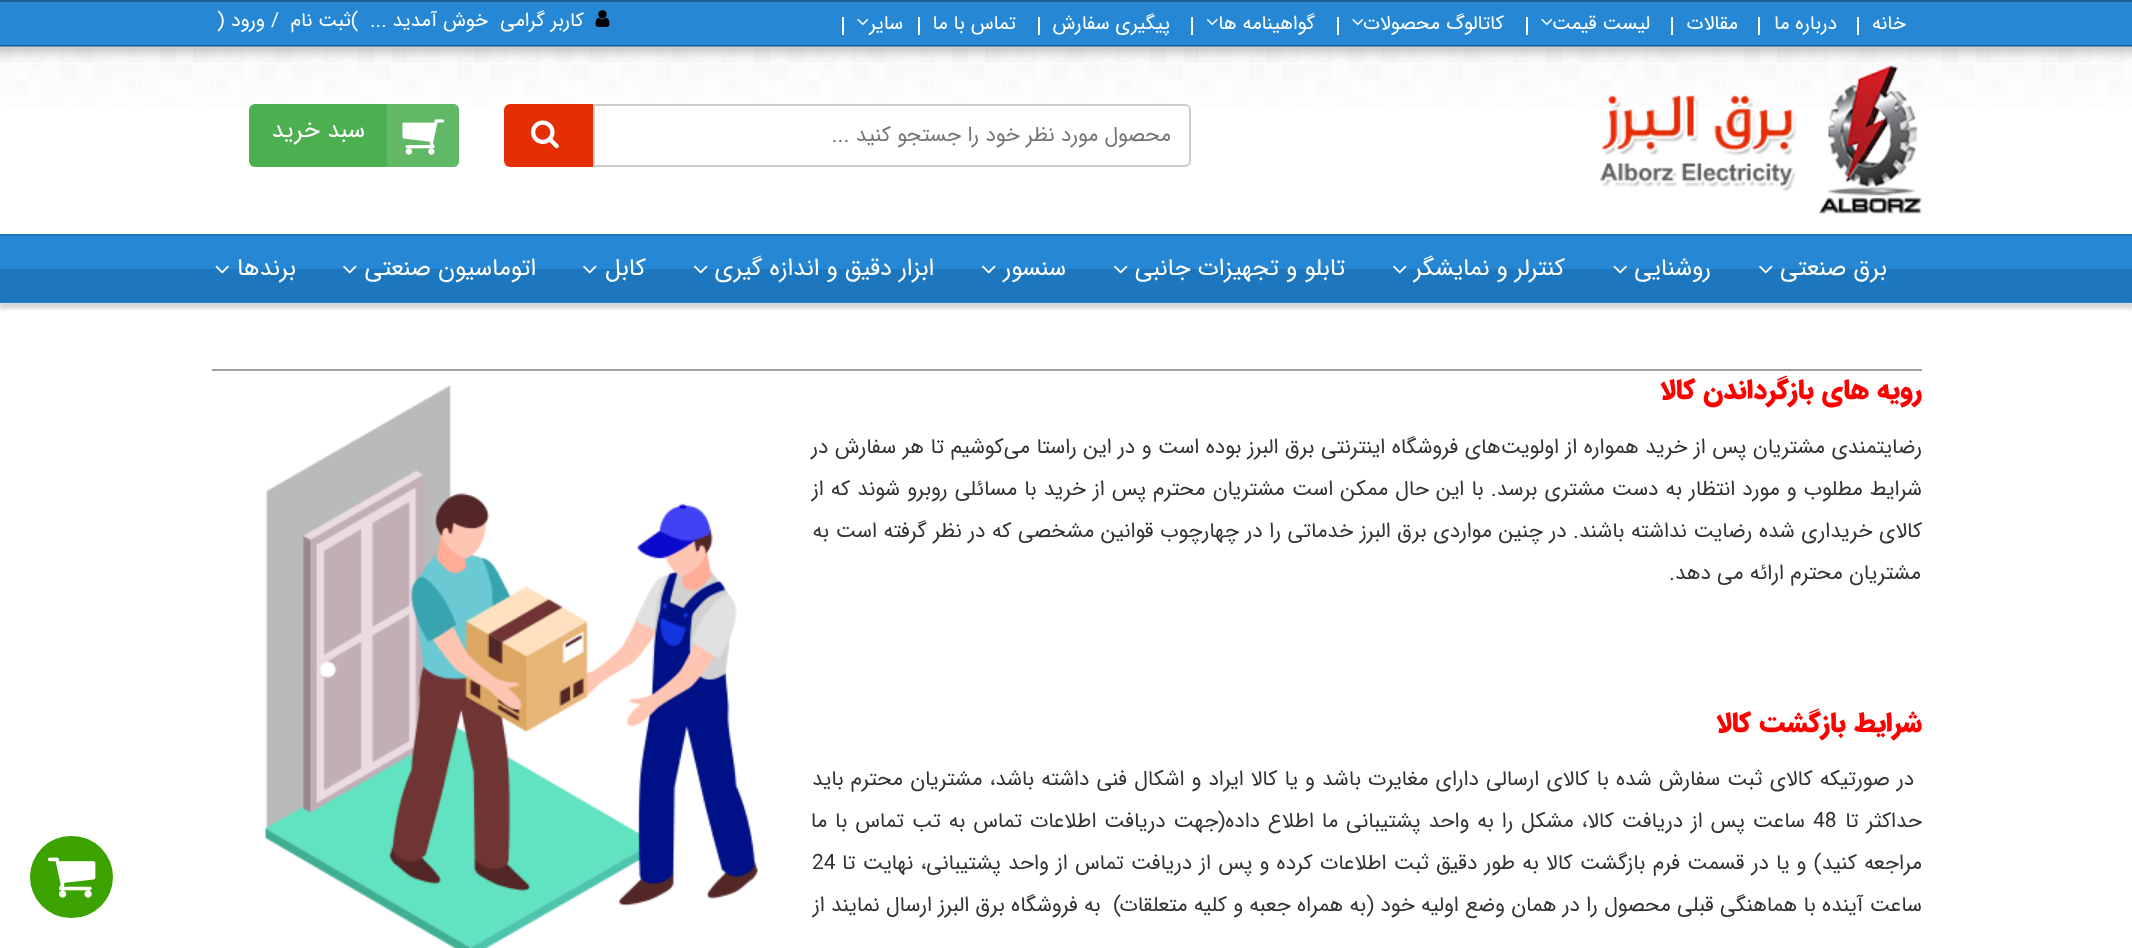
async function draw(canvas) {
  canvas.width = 2132;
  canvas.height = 948;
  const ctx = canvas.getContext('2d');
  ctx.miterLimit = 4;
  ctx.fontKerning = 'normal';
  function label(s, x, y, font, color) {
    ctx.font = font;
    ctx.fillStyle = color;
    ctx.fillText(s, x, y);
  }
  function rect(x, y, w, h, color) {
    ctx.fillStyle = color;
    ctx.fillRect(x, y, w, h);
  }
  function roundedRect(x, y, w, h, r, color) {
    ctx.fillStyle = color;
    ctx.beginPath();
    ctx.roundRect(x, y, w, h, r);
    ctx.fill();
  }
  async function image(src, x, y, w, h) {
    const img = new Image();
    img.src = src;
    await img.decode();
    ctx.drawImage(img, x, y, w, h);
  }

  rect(0, 0, 2132, 948, '#fff');
  rect(0, 2, 2132, 43, '#2687d4');
  rect(0, 0, 2132, 2, '#1a5e93');
  rect(0, 45, 2132, 2, '#1a5e93');
  ctx.direction = 'rtl';
  label('خانه', 1906, 29, '19.5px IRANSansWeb', '#fff');
  rect(1857, 17, 2, 18, '#fff');
  label('درباره ما', 1837, 29, '19.5px IRANSansWeb', '#fff');
  rect(1758, 17, 2, 18, '#fff');
  label('مقالات', 1738, 29, '19.5px IRANSansWeb', '#fff');
  rect(1671, 17, 2, 18, '#fff');
  label('لیست قیمت', 1650, 29, '19.5px IRANSansWeb', '#fff');
  await image('assets/img1.png', 1541, 18, 12, 8);
  rect(1526, 17, 2, 18, '#fff');
  label('كاتالوگ', 1504, 29, '19.5px IRANSansWeb', '#fff');
  label('محصولات', 1440, 29, '19.5px IRANSansWeb', '#fff');
  await image('assets/img1.png', 1352, 18, 12, 8);
  rect(1337, 17, 2, 18, '#fff');
  label('گواهینامه ها', 1315, 29, '19.5px IRANSansWeb', '#fff');
  await image('assets/img2.png', 1206, 18, 12, 8);
  rect(1191, 17, 2, 18, '#fff');
  label('پیگیری سفارش', 1170, 29, '19.5px IRANSansWeb', '#fff');
  rect(1038, 17, 2, 18, '#fff');
  label('تماس با ما', 1016, 29, '19.5px IRANSansWeb', '#fff');
  rect(918, 17, 2, 18, '#fff');
  label('سایر', 903, 29, '19.5px IRANSansWeb', '#fff');
  await image('assets/img1.png', 857, 18, 12, 8);
  rect(842, 17, 2, 18, '#fff');
  await image('assets/img3.png', 595, 10, 15, 17);
  label('کاربر گرامی', 584, 26, '19.5px IRANSansWeb', '#fff');
  label('خوش آمدید ...', 488, 26, '19.5px IRANSansWeb', '#fff');
  ctx.direction = 'ltr';
  label('(', 351, 26, '19.5px IRANSansWeb', '#fff');
  ctx.direction = 'rtl';
  label('ثبت‌ نام', 351, 26, '19.5px IRANSansWeb', '#fff');
  ctx.direction = 'ltr';
  label('/', 271, 26, '19.5px IRANSansWeb', '#fff');
  ctx.direction = 'rtl';
  label('ورود', 265, 26, '19.5px IRANSansWeb', '#fff');
  ctx.direction = 'ltr';
  label(')', 217, 26, '19.5px IRANSansWeb', '#fff');
  await image('assets/img4.png', 0, 46, 2132, 62);
  await image('assets/img5.png', 1600, 65, 322, 149);
  ctx.beginPath();
  ctx.roundRect(594, 105, 596, 61, [0, 5, 5, 0]);
  ctx.fill();
  ctx.strokeStyle = '#ccc';
  ctx.lineWidth = 2;
  ctx.stroke();
  ctx.direction = 'rtl';
  label('محصول مورد نظر خود را جستجو کنید ...', 1171, 141, '21px IRANSansWeb', '#757575');
  ctx.fillStyle = '#e52e04';
  ctx.beginPath();
  ctx.roundRect(504, 104, 89, 63, [6, 0, 0, 6]);
  ctx.fill();
  await image('assets/img6.png', 531, 120, 28, 29);
  roundedRect(249, 104, 210, 63, 6, '#4caf50');
  ctx.fillStyle = '#62b965';
  ctx.beginPath();
  ctx.roundRect(387, 104, 72, 63, [0, 6, 6, 0]);
  ctx.fill();
  await image('assets/img7.png', 402, 119, 43, 36);
  label('سبد خرید', 365, 137, '24px IRANSansWeb', '#fff');
  ctx.fillStyle = '#cfcfcfcc';
  ctx.filter = 'blur(1.5px)';
  ctx.beginPath();
  ctx.rect(0, 240, 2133, 69);
  ctx.fill();
  ctx.filter = 'none';
  rect(0, 234, 2132, 2, '#1c77bf');
  rect(0, 236, 2132, 33, '#2687d4');
  rect(0, 269, 2132, 33, '#1c77bf');
  rect(0, 302, 2132, 1, '#2687d4');
  label('برق صنعتی', 1887, 275, '24px IRANSansWeb', '#fff');
  await image('assets/img8.png', 1759, 265, 14, 9);
  label('روشنایی', 1711, 275, '24px IRANSansWeb', '#fff');
  await image('assets/img9.png', 1613, 265, 14, 9);
  label('کنترلر و نمایشگر', 1565, 275, '24px IRANSansWeb', '#fff');
  await image('assets/img8.png', 1393, 265, 14, 9);
  label('تابلو و تجهیزات جانبی', 1345, 275, '24px IRANSansWeb', '#fff');
  await image('assets/img8.png', 1114, 265, 14, 9);
  label('سنسور', 1066, 275, '24px IRANSansWeb', '#fff');
  await image('assets/img8.png', 982, 265, 14, 9);
  label('ابزار دقیق و اندازه گیری', 934, 275, '24px IRANSansWeb', '#fff');
  await image('assets/img8.png', 694, 265, 14, 9);
  label('کابل', 646, 275, '24px IRANSansWeb', '#fff');
  await image('assets/img8.png', 583, 265, 14, 9);
  label('اتوماسیون صنعتی', 536, 275, '24px IRANSansWeb', '#fff');
  await image('assets/img8.png', 343, 265, 14, 9);
  label('برندها', 296, 275, '24px IRANSansWeb', '#fff');
  await image('assets/img9.png', 215, 265, 14, 9);
  rect(212, 369, 1710, 2, '#a0a0a0');
  label('رويه های بازگرداندن كالا', 1922, 398, '900 27.25px IRANSansWeb', '#f00');
  await image('assets/img10.png', 265, 385, 493, 563);
  ctx.wordSpacing = '0.2px';
  label('رضایتمندی مشتریان پس از خرید همواره از اولویت‌های فروشگاه اينترنتی برق البرز بوده است و در این راستا می‌کوشيم تا هر سفارش در', 1922, 453, '21px IRANSansWeb', '#333');
  ctx.wordSpacing = '0.8px';
  label('شرایط مطلوب و مورد انتظار به دست مشتری برسد. با اين حال ممكن است مشتريان محترم پس از خريد با مسائلی روبرو شوند كه از', 1922, 495, '21px IRANSansWeb', '#333');
  ctx.wordSpacing = '0.3px';
  label('كالای خريداری شده رضايت نداشته باشند. در چنين مواردی برق البرز خدماتی را در چهارچوب قوانين مشخصی كه در نظر گرفته است به', 1922, 537, '21px IRANSansWeb', '#333');
  ctx.wordSpacing = '0px';
  label('مشتريان محترم ارائه می دهد.', 1921, 579, '21px IRANSansWeb', '#333');
  label('شرایط بازگشت کالا', 1922, 731, '900 27.25px IRANSansWeb', '#f00');
  ctx.wordSpacing = '0.8px';
  label('در صورتیکه کالای ثبت سفارش شده با کالای ارسالی دارای مغایرت باشد و يا كالا ايراد و اشكال فنی داشته باشد، مشتریان محترم باید', 1914, 785, '21px IRANSansWeb', '#333');
  ctx.wordSpacing = '1.6px';
  label('حداکثر تا', 1922, 827, '21px IRANSansWeb', '#333');
  ctx.wordSpacing = '0px';
  ctx.direction = 'ltr';
  label('48', 1813, 827, '21px IRANSansWeb', '#333');
  ctx.wordSpacing = '1.6px';
  ctx.direction = 'rtl';
  label('ساعت پس از دریافت كالا، مشکل را به واحد پشتيبانی ما اطلاع داده(جهت دريافت اطلاعات تماس به تب تماس با ما', 1805, 827, '21px IRANSansWeb', '#333');
  ctx.wordSpacing = '0.9px';
  label('مراجعه كنيد) و يا در قسمت فرم بازگشت كالا به طور دقیق ثبت اطلاعات کرده و پس از دريافت تماس از واحد پشتيبانی، نهایت تا', 1922, 869, '21px IRANSansWeb', '#333');
  ctx.wordSpacing = '0px';
  ctx.direction = 'ltr';
  label('24', 812, 869, '21px IRANSansWeb', '#333');
  ctx.direction = 'rtl';
  label('ساعت آینده با هماهنگی قبلی محصول را در همان وضع اولیه خود (به همراه جعبه و کلیه متعلقات)  به فروشگاه برق البرز ارسال نمایند از', 1922, 911, '21px IRANSansWeb', '#333');
  roundedRect(30, 836, 83, 82, 41, '#3ca200');
  await image('assets/img11.png', 48, 857, 48, 41);
}

draw(document.querySelector('canvas'));
